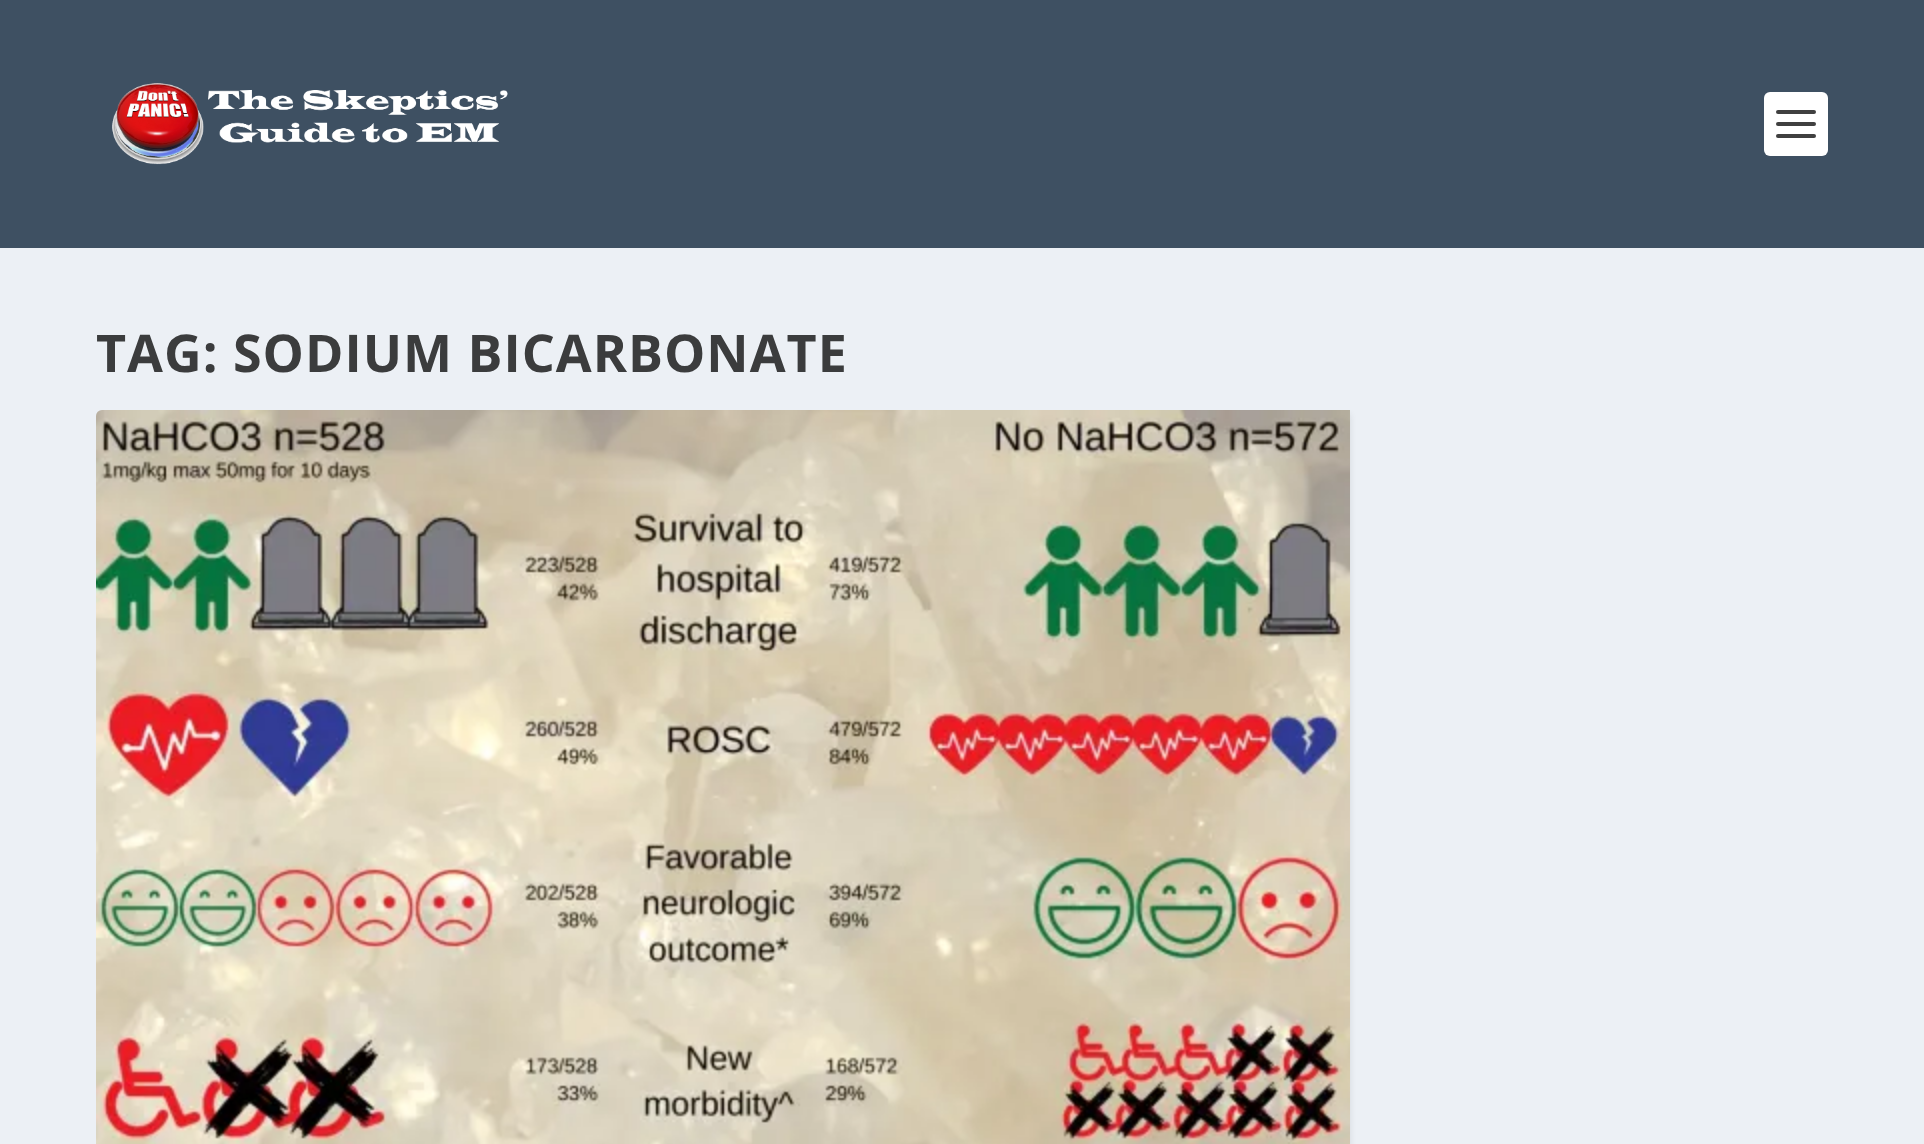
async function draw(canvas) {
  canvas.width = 1924;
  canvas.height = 1144;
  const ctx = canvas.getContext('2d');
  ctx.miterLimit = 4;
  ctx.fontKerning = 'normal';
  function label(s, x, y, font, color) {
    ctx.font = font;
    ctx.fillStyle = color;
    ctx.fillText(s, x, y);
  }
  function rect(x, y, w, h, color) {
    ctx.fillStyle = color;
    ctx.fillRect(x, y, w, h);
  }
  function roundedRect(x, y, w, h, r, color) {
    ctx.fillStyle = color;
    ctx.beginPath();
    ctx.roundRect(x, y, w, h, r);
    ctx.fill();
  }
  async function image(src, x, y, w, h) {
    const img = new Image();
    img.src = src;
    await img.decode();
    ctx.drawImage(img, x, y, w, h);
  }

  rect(0, 0, 1924, 1144, '#ecf0f5');
  rect(0, 0, 1924, 248, '#3e5062');
  await image('assets/img1.png', 112, 83, 396, 82);
  roundedRect(1764, 92, 64, 64, 6, '#fff');
  roundedRect(1776, 110, 40, 4, 2, '#404040');
  roundedRect(1776, 122, 40, 4, 2, '#404040');
  roundedRect(1776, 134, 40, 4, 2, '#404040');
  ctx.letterSpacing = '1px';
  label('TAG: SODIUM BICARBONATE', 96, 372, 'bold 52px Open Sans', '#3b3c3d');
  ctx.save();
  ctx.beginPath();
  ctx.roundRect(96, 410, 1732, 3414, 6);
  ctx.clip();
  ctx.fillStyle = '#0000001a';
  ctx.filter = 'blur(3px)';
  ctx.beginPath();
  ctx.roundRect(96, 412, 1254, 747, 6);
  ctx.fill();
  ctx.filter = 'none';
  ctx.restore();
  await image('assets/img2.png', 96, 410, 1254, 734);
}

draw(document.querySelector('canvas'));
